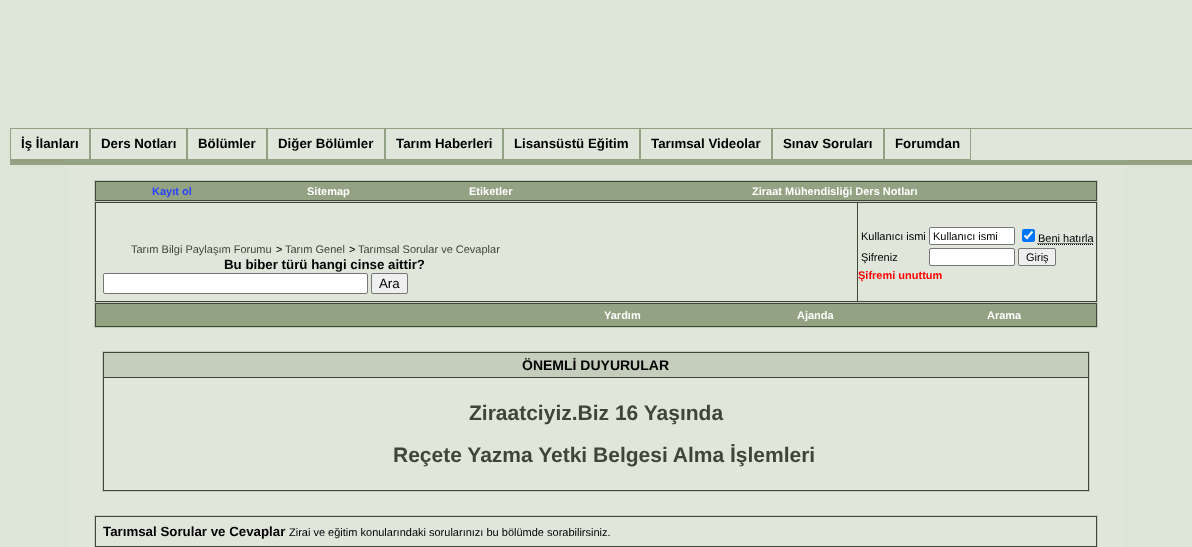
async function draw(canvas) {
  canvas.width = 1192;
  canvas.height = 547;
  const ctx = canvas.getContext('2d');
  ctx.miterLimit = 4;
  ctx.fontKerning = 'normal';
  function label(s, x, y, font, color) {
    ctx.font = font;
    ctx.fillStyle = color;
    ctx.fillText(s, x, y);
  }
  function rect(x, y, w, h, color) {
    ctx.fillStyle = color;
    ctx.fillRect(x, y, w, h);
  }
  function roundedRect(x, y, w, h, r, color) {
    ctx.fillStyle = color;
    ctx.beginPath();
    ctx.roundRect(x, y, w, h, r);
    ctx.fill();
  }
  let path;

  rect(0, 0, 1192, 547, '#dde5d6');
  rect(10, 128, 1182, 1, '#92a282');
  rect(10, 160, 1182, 5, '#92a282');
  rect(11, 129, 1181, 30, '#e1e6db');
  rect(89, 129, 1, 31, '#92a282');
  rect(10, 159, 80, 1, '#92a282');
  rect(10, 129, 1, 31, '#92a282');
  label('İş İlanları', 21, 148, 'bold 13.3px Liberation Sans', '#000');
  rect(186, 129, 1, 31, '#92a282');
  rect(90, 159, 97, 1, '#92a282');
  rect(90, 129, 1, 31, '#92a282');
  label('Ders Notları', 101, 148, 'bold 13.3px Liberation Sans', '#000');
  rect(266, 129, 1, 31, '#92a282');
  rect(187, 159, 80, 1, '#92a282');
  rect(187, 129, 1, 31, '#92a282');
  label('Bölümler', 198, 148, 'bold 13.3px Liberation Sans', '#000');
  rect(384, 129, 1, 31, '#92a282');
  rect(267, 159, 118, 1, '#92a282');
  rect(267, 129, 1, 31, '#92a282');
  label('Diğer Bölümler', 278, 148, 'bold 13.3px Liberation Sans', '#000');
  rect(502, 129, 1, 31, '#92a282');
  rect(385, 159, 118, 1, '#92a282');
  rect(385, 129, 1, 31, '#92a282');
  label('Tarım Haberleri', 396, 148, 'bold 13.3px Liberation Sans', '#000');
  rect(639, 129, 1, 31, '#92a282');
  rect(503, 159, 137, 1, '#92a282');
  rect(503, 129, 1, 31, '#92a282');
  label('Lisansüstü Eğitim', 514, 148, 'bold 13.3px Liberation Sans', '#000');
  rect(771, 129, 1, 31, '#92a282');
  rect(640, 159, 132, 1, '#92a282');
  rect(640, 129, 1, 31, '#92a282');
  label('Tarımsal Videolar', 651, 148, 'bold 13.3px Liberation Sans', '#000');
  rect(883, 129, 1, 31, '#92a282');
  rect(772, 159, 112, 1, '#92a282');
  rect(772, 129, 1, 31, '#92a282');
  label('Sınav Soruları', 783, 148, 'bold 13.3px Liberation Sans', '#000');
  rect(970, 129, 1, 31, '#92a282');
  rect(884, 159, 87, 1, '#92a282');
  rect(884, 129, 1, 31, '#92a282');
  label('Forumdan', 895, 148, 'bold 13.3px Liberation Sans', '#000');
  rect(69, 165, 1054, 382, '#e1e6db');
  rect(95, 181, 1002, 20, '#3e4637');
  rect(94, 180, 1004, 1, '#c5cdbc');
  rect(1097, 180, 1, 21, '#c5cdbc');
  rect(94, 180, 1, 21, '#c5cdbc');
  rect(96, 182, 1000, 18, '#92a282');
  label('Kayıt ol', 152, 195, 'bold 11px Liberation Sans', '#2b41fd');
  label('Sitemap', 307, 195, 'bold 11px Liberation Sans', '#fff');
  label('Etiketler', 469, 195, 'bold 11px Liberation Sans', '#fff');
  label('Ziraat Mühendisliği Ders Notları', 752, 195, 'bold 11px Liberation Sans', '#fff');
  ctx.fillStyle = '#3e4637';
  ctx.beginPath();
  ctx.rect(94.5, 201.5, 1003, 101);
  ctx.fill();
  ctx.strokeStyle = '#c5cdbc';
  ctx.stroke();
  rect(96, 203, 761, 98, '#e1e6db');
  label('Tarım Bilgi Paylaşım Forumu', 131, 253, '11px Liberation Sans', '#3e4637');
  label('>', 276, 253, '11px Liberation Sans', '#000');
  label('Tarım Genel', 285, 253, '11px Liberation Sans', '#3e4637');
  label('>', 349, 253, '11px Liberation Sans', '#000');
  label('Tarımsal Sorular ve Cevaplar', 358, 253, '11px Liberation Sans', '#3e4637');
  label('Bu biber türü hangi cinse aittir?', 224, 269, 'bold 13.3px Liberation Sans', '#000');
  ctx.fillStyle = '#fff';
  ctx.beginPath();
  ctx.roundRect(103.5, 273.5, 264, 20, 1.5);
  ctx.fill();
  ctx.strokeStyle = '#767676';
  ctx.stroke();
  ctx.fillStyle = '#efefef';
  ctx.beginPath();
  ctx.roundRect(371.5, 273.5, 36, 20, 1.5);
  ctx.fill();
  ctx.stroke();
  label('Ara', 379, 288, '13.3px Liberation Sans', '#000');
  rect(858, 203, 238, 98, '#e1e6db');
  label('Kullanıcı ismi', 861, 240, '11px Liberation Sans', '#000');
  ctx.fillStyle = '#fff';
  ctx.beginPath();
  ctx.roundRect(929.5, 227.5, 85, 17, 1.5);
  ctx.fill();
  ctx.stroke();
  label('Kullanıcı ismi', 933, 240, '11px Liberation Sans', '#000');
  roundedRect(1022, 229, 13, 13, 2, '#0075ff');
  path = new Path2D('M1024.5 235.5L1027 238L1032.5 231.5');
  ctx.strokeStyle = '#fff';
  ctx.lineWidth = 2.1;
  ctx.stroke(path);
  label('Beni hatırla', 1038, 242, '11px Liberation Sans', '#000');
  path = new Path2D('M1038 244.5H1093M1037.5 243.5H1093.5');
  ctx.strokeStyle = '#000';
  ctx.lineWidth = 1;
  ctx.setLineDash([1, 1]);
  ctx.stroke(path);
  label('Şifreniz', 861, 261, '11px Liberation Sans', '#000');
  ctx.fillStyle = '#fff';
  ctx.beginPath();
  ctx.roundRect(929.5, 248.5, 85, 17, 1.5);
  ctx.fill();
  ctx.strokeStyle = '#767676';
  ctx.setLineDash([]);
  ctx.stroke();
  ctx.fillStyle = '#efefef';
  ctx.beginPath();
  ctx.roundRect(1018.5, 248.5, 37, 17, 1.5);
  ctx.fill();
  ctx.stroke();
  label('Giriş', 1026, 261, '11px Liberation Sans', '#000');
  label('Şifremi unuttum', 858, 279, 'bold 11px Liberation Sans', '#f00');
  rect(95, 303, 1002, 24, '#3e4637');
  rect(1097, 303, 1, 25, '#c5cdbc');
  rect(94, 327, 1004, 1, '#c5cdbc');
  rect(94, 303, 1, 25, '#c5cdbc');
  rect(96, 304, 1000, 22, '#92a282');
  label('Yardım', 604, 319, 'bold 11px Liberation Sans', '#fff');
  label('Ajanda', 797, 319, 'bold 11px Liberation Sans', '#fff');
  label('Arama', 987, 319, 'bold 11px Liberation Sans', '#fff');
  ctx.fillStyle = '#3e4637';
  ctx.beginPath();
  ctx.rect(102.5, 351.5, 987, 140);
  ctx.fill();
  ctx.strokeStyle = '#c5cdbc';
  ctx.stroke();
  rect(104, 353, 984, 24, '#c5cdbc');
  label('ÖNEMLİ DUYURULAR', 522, 370, 'bold 14px Liberation Sans', '#000');
  rect(104, 378, 984, 112, '#e1e6db');
  label('Ziraatciyiz.Biz 16 Yaşında', 469, 420, 'bold 21px Liberation Sans', '#3e4637');
  label('Reçete Yazma Yetki Belgesi Alma İşlemleri', 393, 462, 'bold 21px Liberation Sans', '#3e4637');
  ctx.beginPath();
  ctx.rect(94.5, 515.5, 1003, 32);
  ctx.fill();
  ctx.stroke();
  rect(96, 517, 1000, 29, '#e1e6db');
  label('Tarımsal Sorular ve Cevaplar', 103, 536, 'bold 13.3px Liberation Sans', '#000');
  label('Zirai ve eğitim konularındaki sorularınızı bu bölümde sorabilirsiniz.', 289, 536, '11px Liberation Sans', '#000');
}

draw(document.querySelector('canvas'));
